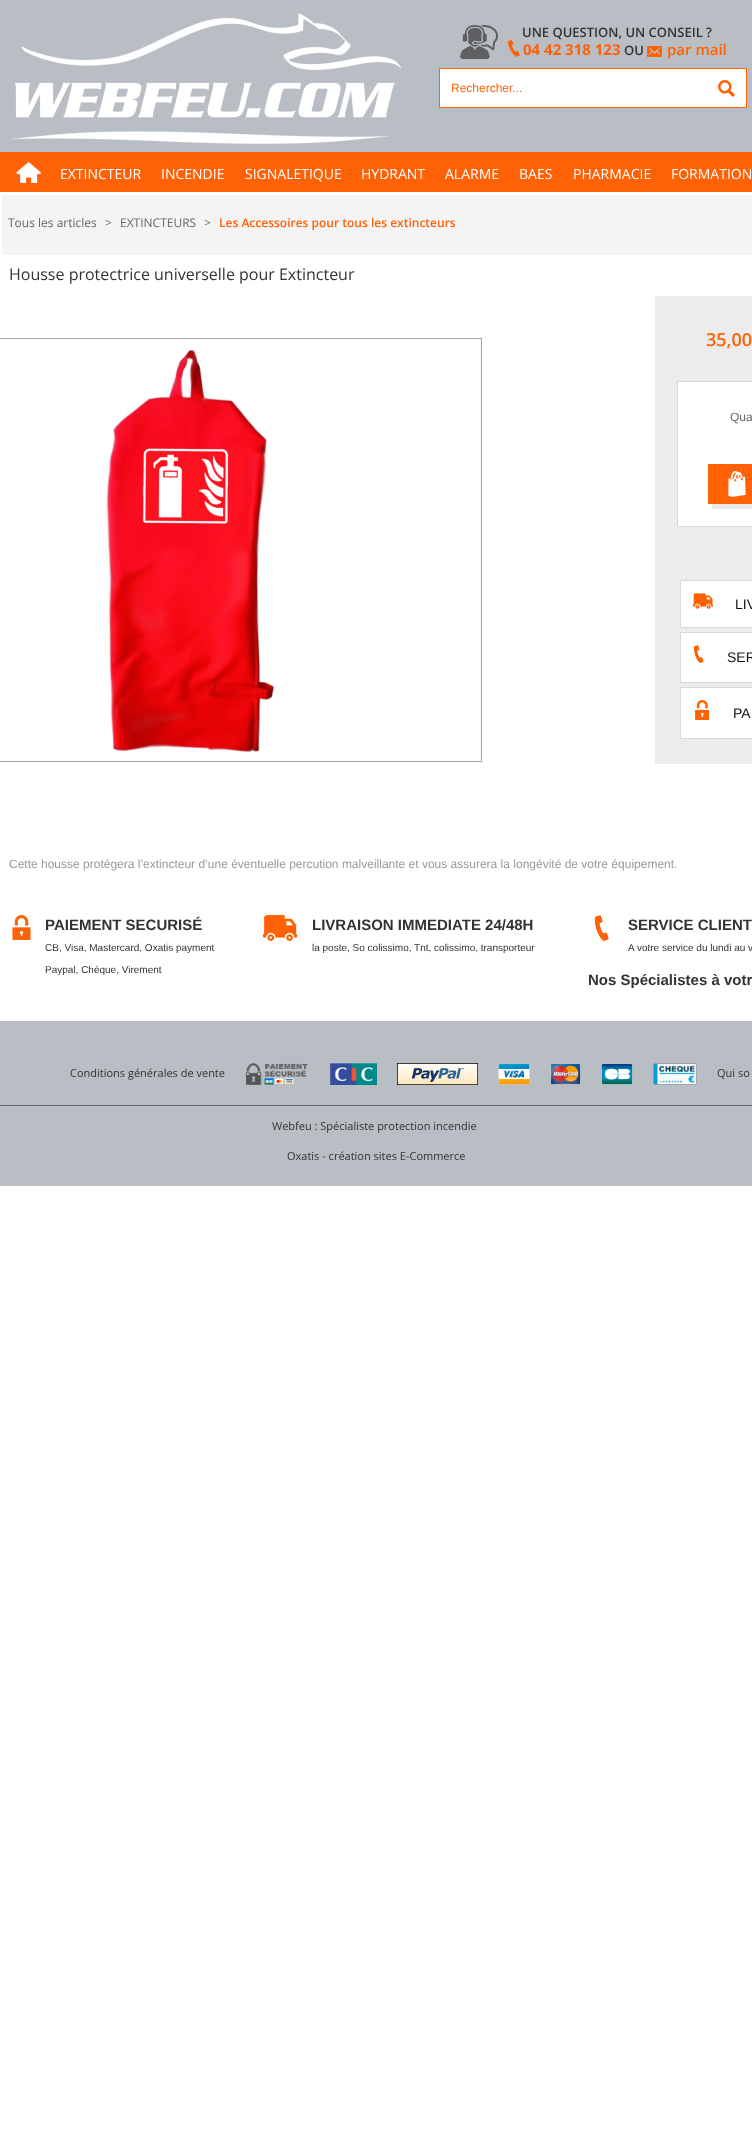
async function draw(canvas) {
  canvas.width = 752;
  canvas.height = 2155;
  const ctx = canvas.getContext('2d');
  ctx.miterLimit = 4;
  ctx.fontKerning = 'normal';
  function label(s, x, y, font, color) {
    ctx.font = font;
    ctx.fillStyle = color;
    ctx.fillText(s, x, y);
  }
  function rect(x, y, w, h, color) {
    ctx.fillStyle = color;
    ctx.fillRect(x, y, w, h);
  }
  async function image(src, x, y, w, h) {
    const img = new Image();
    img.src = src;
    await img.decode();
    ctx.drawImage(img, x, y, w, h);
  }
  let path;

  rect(0, 0, 752, 2155, '#fff');
  await image('assets/img1.png', 0, 0, 752, 192);
  await image('assets/img2.png', 11, 13, 390, 131);
  await image('assets/img3.png', 16, 162, 25, 21);
  await image('assets/img4.png', 460, 25, 38, 34);
  label('UNE QUESTION, UN CONSEIL ?', 522, 37, '600 13px Open Sans', '#333');
  await image('assets/img5.png', 507, 39, 13, 18);
  label('04 42 318 123', 523, 55, 'bold 15px Open Sans', '#ff6107');
  label('OU', 624, 55, '600 13px Open Sans', '#333');
  await image('assets/img6.png', 647, 46, 15, 11);
  label('par mail', 667, 55, '600 15px Open Sans', '#ff6107');
  ctx.fillStyle = '#fff';
  ctx.beginPath();
  ctx.rect(439.5, 68.5, 307, 39);
  ctx.fill();
  ctx.strokeStyle = '#ff6107';
  ctx.stroke();
  label('Rechercher...', 451, 92, '12px Liberation Sans', '#ff6107');
  await image('assets/img7.png', 718, 80, 17, 17);
  label('EXTINCTEUR', 60, 179, '14px Open Sans', '#fff');
  label('INCENDIE', 161, 179, '14px Open Sans', '#fff');
  label('SIGNALETIQUE', 245, 179, '14px Open Sans', '#fff');
  label('HYDRANT', 361, 179, '14px Open Sans', '#fff');
  label('ALARME', 445, 179, '14px Open Sans', '#fff');
  label('BAES', 519, 179, '14px Open Sans', '#fff');
  label('PHARMACIE', 573, 179, '14px Open Sans', '#fff');
  label('FORMATION', 671, 179, '14px Open Sans', '#fff');
  rect(2, 195, 750, 60, '#f4f4f4');
  label('Tous les articles', 8, 227, '12px Open Sans', '#666');
  label('>', 105, 227, '12px Open Sans', '#666');
  label('EXTINCTEURS', 120, 227, '12px Open Sans', '#666');
  label('>', 204, 227, '12px Open Sans', '#666');
  label('Les Accessoires pour tous les extincteurs', 219, 227, '600 12px Open Sans', '#ff6107');
  label('Housse protectrice universelle pour Extincteur', 9, 280, '16px Open Sans', '#333');
  await image('assets/img8.png', 0, 338, 482, 424);
  rect(655, 296, 97, 468, '#ececec');
  label('35,00', 706, 346, '600 18px Open Sans', '#ff6107');
  ctx.fillStyle = '#fff';
  ctx.beginPath();
  ctx.rect(677.5, 381.5, 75, 145);
  ctx.fill();
  ctx.strokeStyle = '#d5d8dd';
  ctx.stroke();
  label('Qua', 730, 421, '12px Liberation Sans', '#666');
  ctx.fillStyle = '#ebebeb';
  path = new Path2D('M712 504V509H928V469H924V504Z');
  ctx.fill(path);
  rect(708, 464, 44, 40, '#ff6107');
  await image('assets/img9.png', 728, 471, 18, 26);
  ctx.fillStyle = '#fff';
  ctx.beginPath();
  ctx.rect(680.5, 580.5, 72, 47);
  ctx.fill();
  ctx.stroke();
  await image('assets/img10.png', 693, 593, 20, 16);
  label('LIV', 735, 609, '14px Liberation Sans', '#121314');
  ctx.fillStyle = '#fff';
  ctx.beginPath();
  ctx.rect(680.5, 632.5, 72, 50);
  ctx.fill();
  ctx.stroke();
  await image('assets/img11.png', 693, 645, 11, 18);
  label('SER', 727, 662, '14px Liberation Sans', '#121314');
  ctx.fillStyle = '#fff';
  ctx.beginPath();
  ctx.rect(680.5, 687.5, 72, 51);
  ctx.fill();
  ctx.stroke();
  await image('assets/img12.png', 695, 700, 14, 20);
  label('PA', 733, 718, '14px Liberation Sans', '#121314');
  label('Cette housse protégera l’extincteur d’une éventuelle percution malveillante et vous assurera la longévité de votre équipement.', 9, 868, '12px Liberation Sans', '#999');
  await image('assets/img13.png', 12, 915, 19, 25);
  label('PAIEMENT SECURISÉ', 45, 930, 'bold 15px Liberation Sans', '#333');
  label('CB, Visa, Mastercard, Oxatis payment', 45, 951, '10px Liberation Sans', '#333');
  label('Paypal, Chèque, Virement', 45, 973, '10px Liberation Sans', '#333');
  await image('assets/img14.png', 263, 915, 34, 26);
  label('LIVRAISON IMMEDIATE 24/48H', 312, 930, 'bold 15px Liberation Sans', '#333');
  label('la poste, So colissimo, Tnt, colissimo, transporteur', 312, 951, '10px Liberation Sans', '#333');
  await image('assets/img15.png', 594, 915, 15, 26);
  label('SERVICE CLIENT', 628, 930, 'bold 15px Liberation Sans', '#333');
  label('A votre service du lundi au v', 628, 951, '10px Liberation Sans', '#333');
  label('Nos Spécialistes à votr', 588, 985, 'bold 15px Liberation Sans', '#333');
  rect(0, 1021, 752, 165, '#b8bec4');
  rect(0, 1105, 752, 1, '#65696d');
  label('Conditions générales de vente', 70, 1077, '11px Open Sans', '#333');
  await image('assets/img16.png', 245, 1063, 63, 22);
  await image('assets/img17.png', 330, 1063, 47, 22);
  await image('assets/img18.png', 397, 1063, 81, 22);
  await image('assets/img19.png', 498, 1063, 32, 22);
  await image('assets/img20.png', 550, 1063, 31, 22);
  await image('assets/img21.png', 601, 1063, 32, 22);
  await image('assets/img22.png', 653, 1063, 44, 22);
  label('Qui so', 717, 1077, '11px Open Sans', '#333');
  label('Webfeu : Spécialiste protection incendie', 272, 1130, '11px Open Sans', '#333');
  label('Oxatis - création sites E-Commerce', 287, 1160, '11px Open Sans', '#333');
}

draw(document.querySelector('canvas'));
